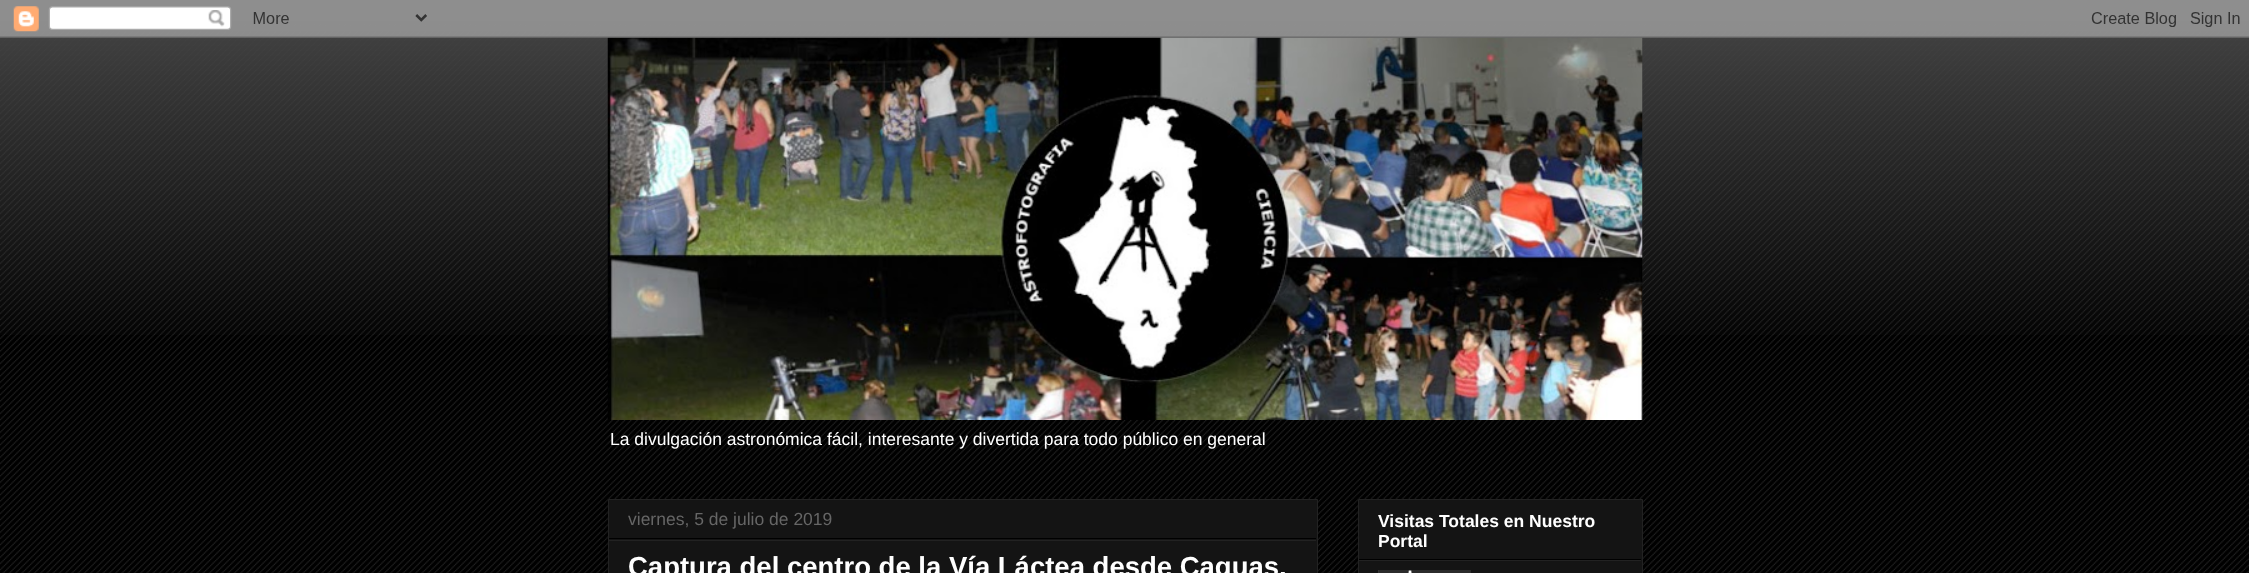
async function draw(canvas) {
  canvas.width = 2249;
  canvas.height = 573;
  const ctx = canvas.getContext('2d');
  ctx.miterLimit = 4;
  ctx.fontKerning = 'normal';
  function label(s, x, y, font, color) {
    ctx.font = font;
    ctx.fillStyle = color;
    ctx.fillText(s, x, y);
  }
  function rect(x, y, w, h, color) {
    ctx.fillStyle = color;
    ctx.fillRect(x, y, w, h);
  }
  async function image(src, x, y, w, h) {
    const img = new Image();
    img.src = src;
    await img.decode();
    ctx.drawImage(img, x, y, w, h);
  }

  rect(0, 0, 2249, 573, '#000');
  await image('assets/img1.png', 0, 16, 2249, 557);
  await image('assets/img2.png', 0, 0, 2249, 335);
  await image('assets/img4.png', 607, 37, 1036, 383);
  await image('assets/img3.png', 0, 0, 2249, 38);
  label('La divulgación astronómica fácil, interesante y divertida para todo público en general', 610, 445, '17.5px Liberation Sans', '#fff');
  ctx.fillStyle = '#141414';
  ctx.beginPath();
  ctx.rect(608.5, 499.5, 709, 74);
  ctx.fill();
  ctx.strokeStyle = '#222';
  ctx.stroke();
  rect(609, 538, 707, 1, '#000');
  label('viernes, 5 de julio de 2019', 628, 525, '17.5px Liberation Sans', '#666');
  rect(609, 540, 707, 1, '#222');
  label('Captura del centro de la Vía Láctea desde Caguas,', 628, 576, 'bold 27.5px Liberation Sans', '#fff');
  ctx.fillStyle = '#141414';
  ctx.beginPath();
  ctx.rect(1358.5, 499.5, 284, 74);
  ctx.fill();
  ctx.stroke();
  rect(1359, 559, 282, 1, '#000');
  label('Visitas Totales en Nuestro', 1378, 527, 'bold 17.5px Liberation Sans', '#fff');
  label('Portal', 1378, 547, 'bold 17.5px Liberation Sans', '#fff');
  rect(1359, 560, 282, 1, '#222');
  await image('assets/img5.png', 1378, 570, 93, 3);
}

draw(document.querySelector('canvas'));
